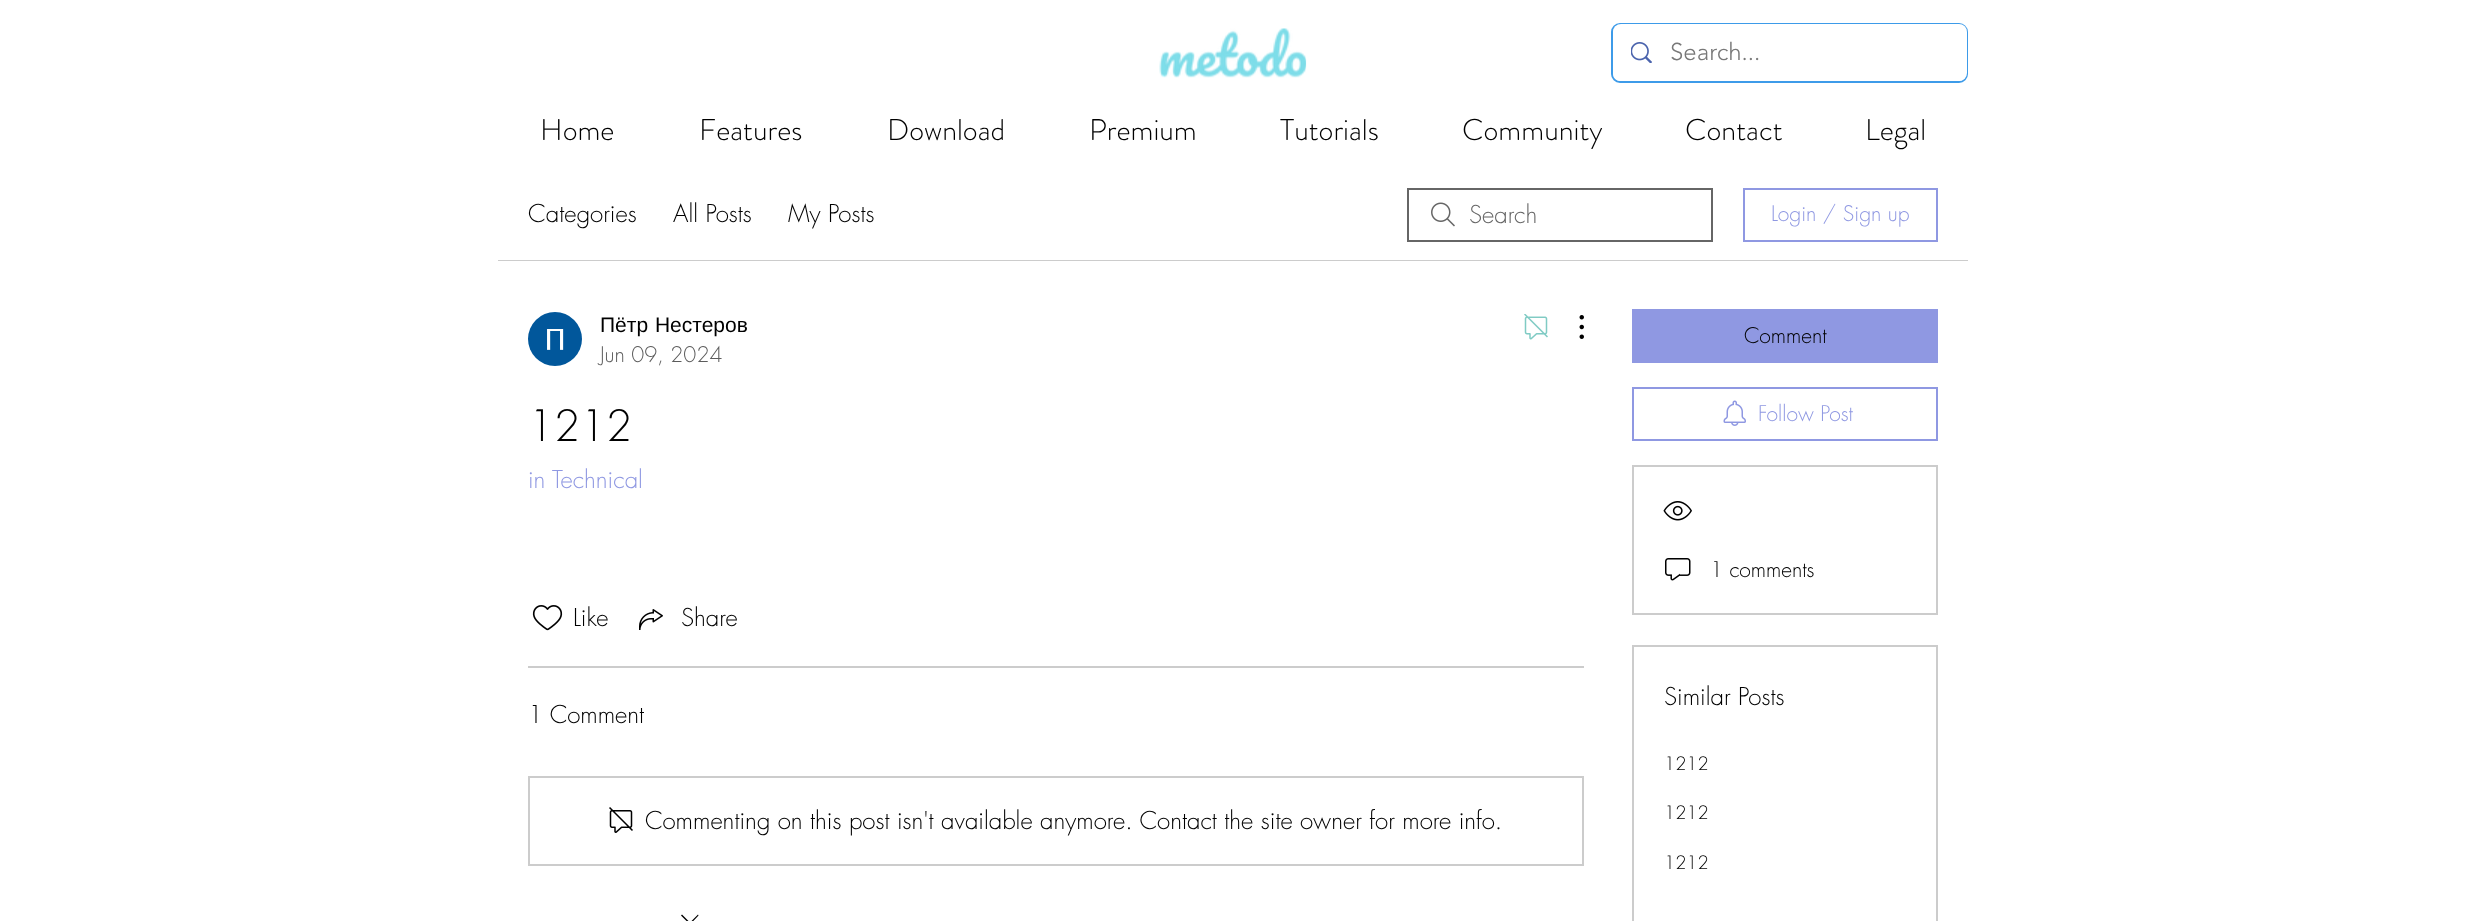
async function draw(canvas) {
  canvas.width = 2465;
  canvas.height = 921;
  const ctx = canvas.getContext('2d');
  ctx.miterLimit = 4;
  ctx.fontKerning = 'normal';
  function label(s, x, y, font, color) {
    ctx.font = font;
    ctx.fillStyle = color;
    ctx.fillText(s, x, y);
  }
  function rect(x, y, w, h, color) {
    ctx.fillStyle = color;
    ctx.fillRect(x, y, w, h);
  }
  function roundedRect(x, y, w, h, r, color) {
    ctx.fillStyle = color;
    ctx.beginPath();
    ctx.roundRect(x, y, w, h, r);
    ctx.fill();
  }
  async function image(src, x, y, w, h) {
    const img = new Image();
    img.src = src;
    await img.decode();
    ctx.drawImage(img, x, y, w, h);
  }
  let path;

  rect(0, 0, 2465, 921, '#fff');
  await image('assets/img1.png', 1159, 28, 148, 50);
  ctx.beginPath();
  ctx.roundRect(1612, 24, 355, 58, 8);
  ctx.strokeStyle = '#3d9be9';
  ctx.lineWidth = 2;
  ctx.stroke();
  roundedRect(1613, 24, 354, 57, 8, '#fff');
  await image('assets/img2.png', 1631, 42, 21, 21);
  label('Search...', 1670, 60, '300 24px "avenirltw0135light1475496"', '#787878');
  label('Home', 540, 140, '300 30px "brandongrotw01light"', '#000');
  label('Features', 699, 140, '300 30px "brandongrotw01light"', '#000');
  label('Download', 887, 140, '300 30px "brandongrotw01light"', '#000');
  label('Premium', 1089, 140, '300 30px "brandongrotw01light"', '#000');
  label('Tutorials', 1280, 140, '300 30px "brandongrotw01light"', '#000');
  label('Community', 1462, 140, '300 30px "brandongrotw01light"', '#000');
  label('Contact', 1685, 140, '300 30px "brandongrotw01light"', '#000');
  label('Legal', 1865, 140, '300 30px "brandongrotw01light"', '#000');
  rect(498, 260, 1470, 1, '#ccc');
  label('Categories', 528, 222, '300 24px futura', '#000');
  label('All Posts', 673, 222, '300 24px futura', '#000');
  label('My Posts', 788, 222, '300 24px futura', '#000');
  await image('assets/img3.png', 1431, 202, 24, 25);
  ctx.strokeStyle = '#666';
  ctx.strokeRect(1408, 189, 304, 52);
  label('Search', 1469, 223, '300 24px futura', '#666');
  ctx.strokeStyle = '#8f98e2';
  ctx.strokeRect(1744, 189, 193, 52);
  label('Login / Sign up', 1771, 221, '300 21px futura', '#8f98e2');
  await image('assets/img4.png', 528, 312, 54, 54);
  ctx.wordSpacing = '1px';
  label('Пётр Нестеров', 600, 332, '21px Liberation Sans', '#000');
  ctx.wordSpacing = '0px';
  label('Jun 09, 2024', 600, 362, '300 21px futura', '#5c5c5c');
  await image('assets/img5.png', 1524, 314, 24, 26);
  await image('assets/img6.png', 1579, 315, 5, 24);
  label('1212', 528, 441, '300 42px futura', '#000');
  label('in', 528, 488, '300 24px futura', '#8f98e2');
  label('Technical', 552, 488, '300 24px futura', '#8f98e2');
  await image('assets/img7.png', 532, 605, 31, 26);
  label('Like', 573, 626, '300 24px futura', '#000');
  await image('assets/img8.png', 639, 609, 24, 21);
  label('Share', 681, 626, '300 24px futura', '#000');
  rect(528, 666, 1056, 2, '#ccc');
  label('1 Comment', 528, 723, '300 24px futura', '#000');
  ctx.strokeStyle = '#ccc';
  ctx.strokeRect(529, 777, 1054, 88);
  await image('assets/img9.png', 609, 807, 24, 26);
  label('Commenting on this post isn\'t available anymore. Contact the site owner for more info.', 645, 829, '300 24px futura', '#000');
  path = new Path2D('M698 914.5L698.5 915.5L690 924.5L681 915.5L682 914.5L690 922.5Z');
  ctx.fill(path, 'evenodd');
  rect(1632, 309, 306, 54, '#8f98e2');
  label('Comment', 1744, 343, '300 21px futura', '#000');
  ctx.strokeStyle = '#8f98e2';
  ctx.strokeRect(1633, 388, 304, 52);
  await image('assets/img10.png', 1723, 400, 23, 26);
  label('Follow Post', 1758, 421, '300 21px futura', '#8f98e2');
  ctx.strokeStyle = '#ccc';
  ctx.strokeRect(1633, 466, 304, 148);
  await image('assets/img11.png', 1663, 501, 29, 20);
  await image('assets/img12.png', 1665, 558, 26, 23);
  label('1 comments', 1710, 577, '300 21px futura', '#000');
  ctx.strokeRect(1633, 646, 304, 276);
  label('Similar Posts', 1664, 705, '300 24px futura', '#000');
  label('1212', 1664, 770, '300 18px futura', '#000');
  label('1212', 1664, 819, '300 18px futura', '#000');
  label('1212', 1664, 869, '300 18px futura', '#000');
}

draw(document.querySelector('canvas'));
